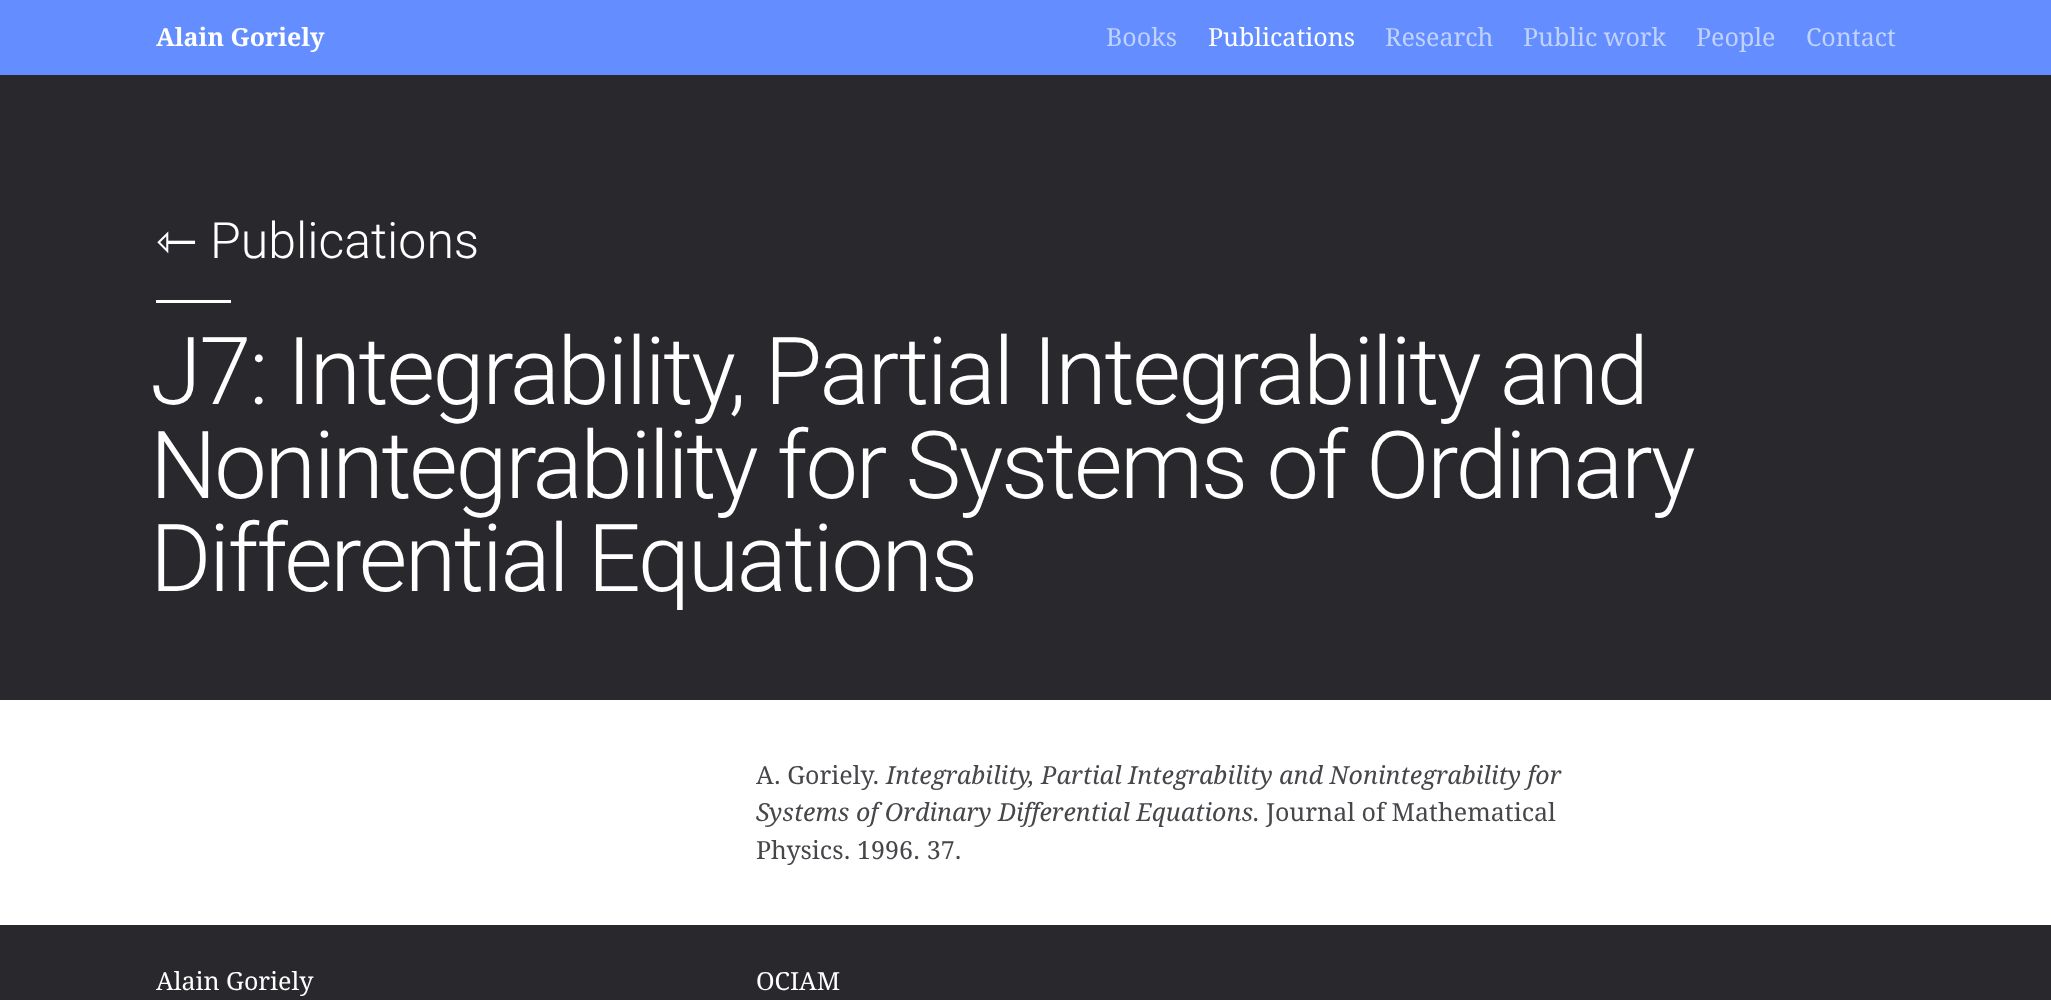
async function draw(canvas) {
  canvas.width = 2051;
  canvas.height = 1000;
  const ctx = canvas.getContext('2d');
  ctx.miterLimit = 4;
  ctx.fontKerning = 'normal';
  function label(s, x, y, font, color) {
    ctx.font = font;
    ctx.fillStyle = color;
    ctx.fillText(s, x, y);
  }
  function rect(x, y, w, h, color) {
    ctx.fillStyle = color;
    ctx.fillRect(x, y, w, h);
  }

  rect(0, 0, 2051, 1000, '#fff');
  rect(0, 0, 2051, 75, '#648eff');
  label('Alain Goriely', 156, 46, 'bold 25px Droid Serif', '#fff');
  label('Books', 1106, 46, '25px Droid Serif', '#c1d2ff');
  label('Publications', 1208, 46, '25px Droid Serif', '#fff');
  label('Research', 1385, 46, '25px Droid Serif', '#c1d2ff');
  label('Public work', 1523, 46, '25px Droid Serif', '#c1d2ff');
  label('People', 1696, 46, '25px Droid Serif', '#c1d2ff');
  label('Contact', 1806, 46, '25px Droid Serif', '#c1d2ff');
  rect(0, 75, 2051, 625, '#28282d');
  label('⇽', 156, 258, '50px DejaVu Sans', '#fff');
  label('Publications', 210, 258, '300 50px Roboto', '#fff');
  rect(156, 300, 75, 3, '#fff');
  ctx.letterSpacing = '-2.35px';
  label('J7: Integrability, Partial Integrability and', 150, 404, '300 93.75px Roboto', '#fff');
  label('Nonintegrability for Systems of Ordinary', 150, 498, '300 93.75px Roboto', '#fff');
  label('Differential Equations', 150, 591, '300 93.75px Roboto', '#fff');
  ctx.letterSpacing = '0px';
  label('A. Goriely.', 756, 784, '25px Droid Serif', '#46464b');
  label('Integrability, Partial Integrability and Nonintegrability for', 886, 784, 'italic 25px Droid Serif', '#46464b');
  label('Systems of Ordinary Differential Equations.', 756, 821, 'italic 25px Droid Serif', '#46464b');
  label('Journal of Mathematical', 1266, 821, '25px Droid Serif', '#46464b');
  label('Physics. 1996. 37.', 756, 859, '25px Droid Serif', '#46464b');
  rect(0, 925, 2051, 75, '#28282d');
  label('Alain Goriely', 156, 990, '25px Droid Serif', '#fff');
  label('OCIAM', 756, 990, '25px Droid Serif', '#fff');
}

draw(document.querySelector('canvas'));
